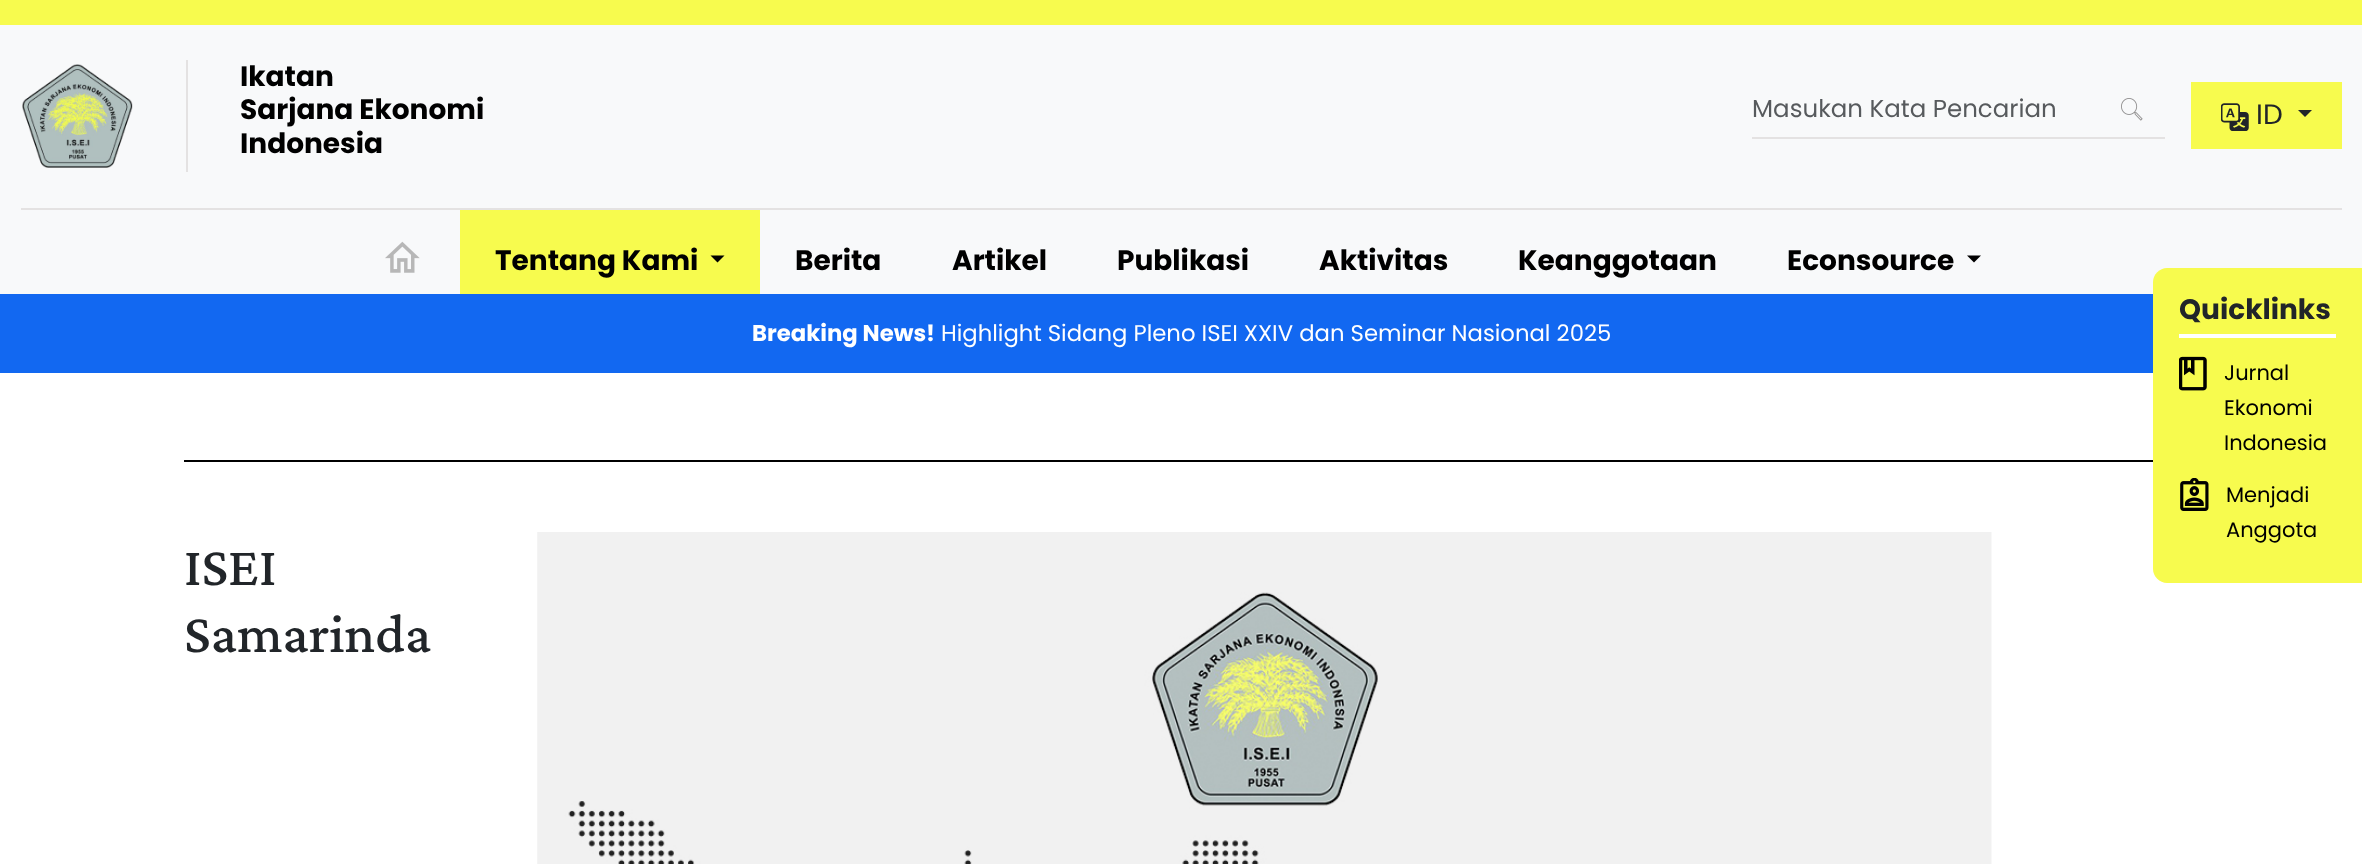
async function draw(canvas) {
  canvas.width = 2362;
  canvas.height = 864;
  const ctx = canvas.getContext('2d');
  ctx.miterLimit = 4;
  ctx.fontKerning = 'normal';
  function label(s, x, y, font, color) {
    ctx.font = font;
    ctx.fillStyle = color;
    ctx.fillText(s, x, y);
  }
  function rect(x, y, w, h, color) {
    ctx.fillStyle = color;
    ctx.fillRect(x, y, w, h);
  }
  async function image(src, x, y, w, h) {
    const img = new Image();
    img.src = src;
    await img.decode();
    ctx.drawImage(img, x, y, w, h);
  }
  let path;

  rect(0, 0, 2362, 864, '#fff');
  rect(0, 25, 2362, 269, '#f8f9fa');
  rect(0, 0, 2362, 25, '#f7fb4e');
  await image('assets/img1.png', 22, 64, 111, 104);
  rect(186, 60, 2, 112, '#e4e2e2');
  label('Ikatan', 240, 86, 'bold 28px Poppins', '#000');
  label('Sarjana Ekonomi', 240, 119, 'bold 28px Poppins', '#000');
  label('Indonesia', 240, 153, 'bold 28px Poppins', '#000');
  rect(1752, 137, 413, 2, '#e4e2e2');
  await image('assets/img2.png', 2121, 98, 22, 23);
  label('Masukan Kata Pencarian', 1752, 117, '24.5px Poppins', '#575a5d');
  rect(2191, 82, 151, 67, '#f7fb4e');
  await image('assets/img3.png', 2221, 103, 28, 28);
  label('ID', 2256, 124, '28px Poppins', '#212529');
  path = new Path2D('M2298 110H2312L2305 117Z');
  ctx.fill(path);
  rect(21, 208, 2321, 2, '#e4e2e2');
  await image('assets/img4.png', 385, 241, 35, 32);
  rect(460, 210, 300, 84, '#f7fb4e');
  label('Tentang Kami', 495, 270, 'bold 28px Poppins', '#000');
  path = new Path2D('M710.5 255.5H724.5L717.5 262.5Z');
  ctx.fill(path);
  label('Berita', 795, 270, 'bold 28px Poppins', '#000');
  label('Artikel', 952, 270, 'bold 28px Poppins', '#000');
  label('Publikasi', 1117, 270, 'bold 28px Poppins', '#000');
  label('Aktivitas', 1319, 270, 'bold 28px Poppins', '#000');
  label('Keanggotaan', 1518, 270, 'bold 28px Poppins', '#000');
  label('Econsource', 1787, 270, 'bold 28px Poppins', '#000');
  path = new Path2D('M1967 255.5H1981L1974 262.5Z');
  ctx.fill(path);
  rect(0, 294, 2153, 79, '#1268f1');
  label('Breaking News!', 752, 341, 'bold 22.75px Poppins', '#fff');
  label('Highlight Sidang Pleno ISEI XXIV dan Seminar Nasional 2025', 941, 341, '22.75px Poppins', '#fff');
  ctx.fillStyle = '#f7fb4e';
  path = new Path2D('M2167 268H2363V583H2167C2159.5 583 2153 576.5 2153 569V282C2153 274.5 2159.5 268 2167 268Z');
  ctx.fill(path);
  rect(2179, 334, 157, 4, '#fff');
  label('Quicklinks', 2179, 319, 'bold 28px Poppins', '#212529');
  await image('assets/img5.png', 2179, 356, 28, 35);
  label('Jurnal', 2224, 380, '21px Poppins', '#000');
  label('Ekonomi', 2224, 415, '21px Poppins', '#000');
  label('Indonesia', 2224, 450, '21px Poppins', '#000');
  await image('assets/img6.png', 2180, 478, 29, 33);
  label('Menjadi', 2226, 502, '21px Poppins', '#000');
  label('Anggota', 2226, 537, '21px Poppins', '#000');
  rect(184, 460, 1969, 2, '#000');
  label('ISEI', 184, 585, '500 56px Crimson Pro', '#212529');
  label('Samarinda', 184, 652, '500 56px Crimson Pro', '#212529');
  await image('assets/img7.png', 537, 532, 1455, 332);
}

draw(document.querySelector('canvas'));
